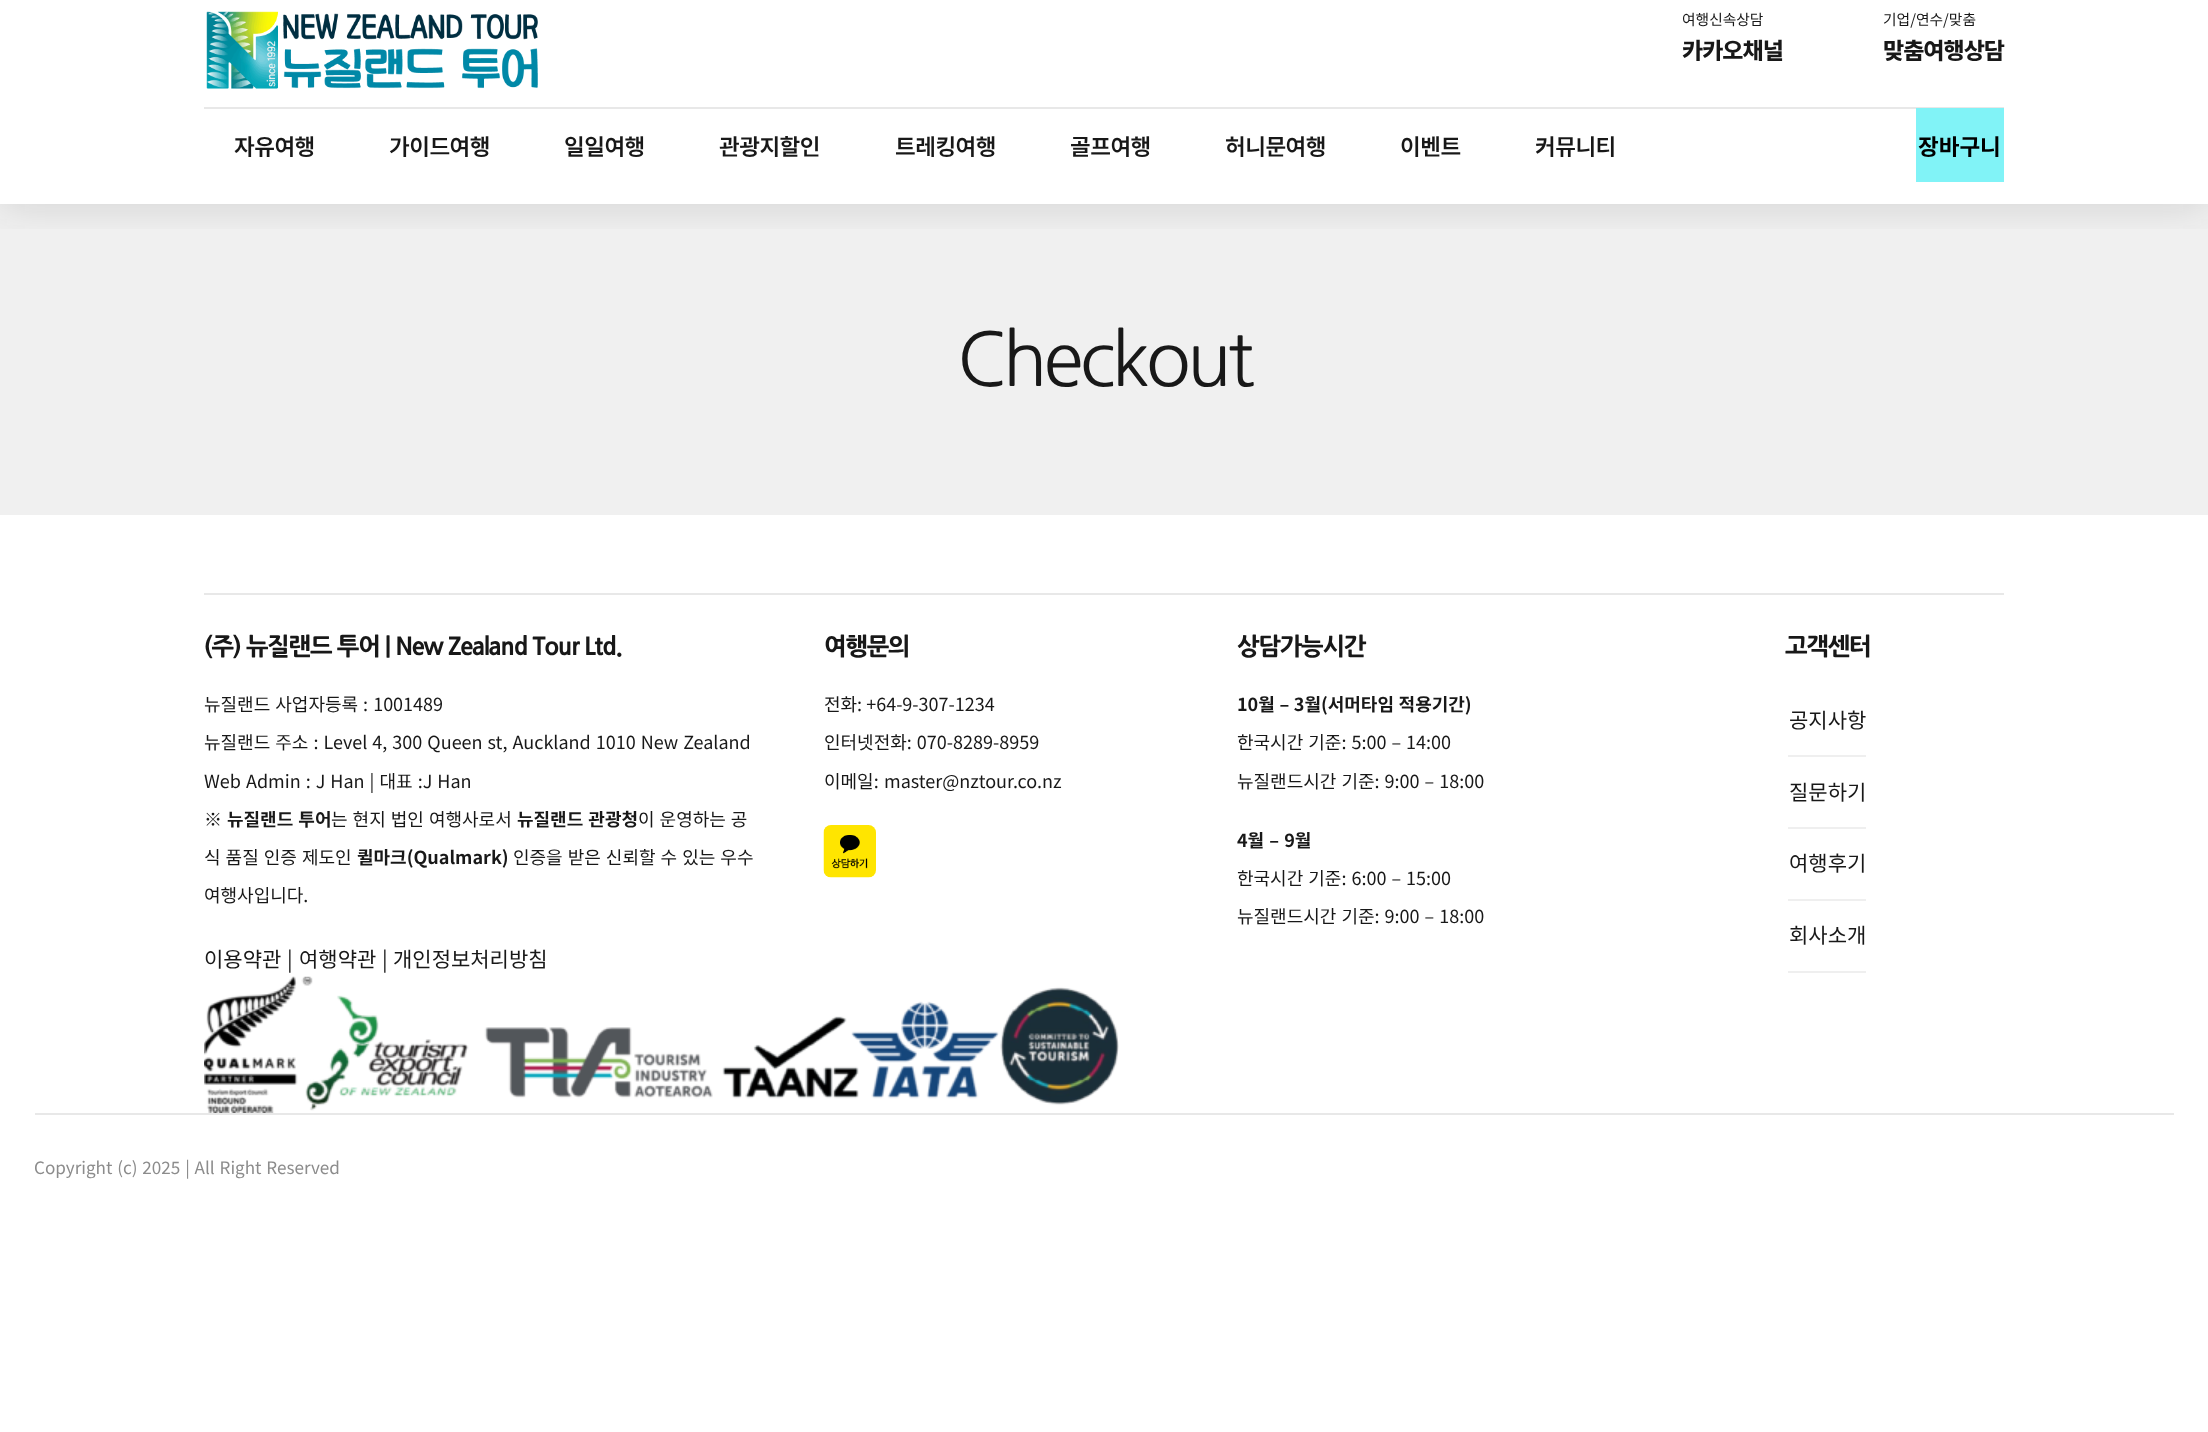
async function draw(canvas) {
  canvas.width = 2208;
  canvas.height = 1432;
  const ctx = canvas.getContext('2d');
  ctx.miterLimit = 4;
  ctx.fontKerning = 'normal';
  function label(s, x, y, font, color) {
    ctx.font = font;
    ctx.fillStyle = color;
    ctx.fillText(s, x, y);
  }
  function rect(x, y, w, h, color) {
    ctx.fillStyle = color;
    ctx.fillRect(x, y, w, h);
  }
  async function image(src, x, y, w, h) {
    const img = new Image();
    img.src = src;
    await img.decode();
    ctx.drawImage(img, x, y, w, h);
  }

  rect(0, 0, 2208, 1432, '#fff');
  rect(0, 204, 2208, 311, '#f0f0f0');
  ctx.save();
  ctx.beginPath();
  ctx.rect(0, 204, 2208, 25);
  ctx.clip();
  ctx.fillStyle = '#18181826';
  ctx.filter = 'blur(22.5px)';
  ctx.beginPath();
  ctx.rect(0, -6, 2208, 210);
  ctx.fill();
  ctx.filter = 'none';
  ctx.restore();
  await image('assets/img1.png', 206, 11, 332, 78);
  label('여행신속상담', 1682, 25, '14.75px Noto Sans KR', '#181818');
  ctx.letterSpacing = '-1px';
  label('카카오채널', 1682, 59, '800 23px Noto Sans KR', '#181818');
  ctx.letterSpacing = '0px';
  label('기업/연수/맞춤', 1883, 25, '14.75px Noto Sans KR', '#181818');
  ctx.letterSpacing = '-1px';
  label('맞춤여행상담', 1883, 59, '800 23px Noto Sans KR', '#181818');
  rect(204, 107, 1800, 2, '#e8e8e8');
  ctx.letterSpacing = '-0.5px';
  label('자유여행', 234, 155, '600 22.5px Noto Sans KR', '#181818');
  label('가이드여행', 389, 155, '600 22.5px Noto Sans KR', '#181818');
  label('일일여행', 564, 155, '600 22.5px Noto Sans KR', '#181818');
  label('관광지할인', 719, 155, '600 22.5px Noto Sans KR', '#181818');
  label('트레킹여행', 895, 155, '600 22.5px Noto Sans KR', '#181818');
  label('골프여행', 1070, 155, '600 22.5px Noto Sans KR', '#181818');
  label('허니문여행', 1225, 155, '600 22.5px Noto Sans KR', '#181818');
  label('이벤트', 1400, 155, '600 22.5px Noto Sans KR', '#181818');
  label('커뮤니티', 1535, 155, '600 22.5px Noto Sans KR', '#181818');
  rect(1916, 108, 88, 74, '#81f3f7');
  ctx.letterSpacing = '0px';
  label('장바구니', 1918, 155, 'bold 22.5px Noto Sans KR', '#000');
  ctx.letterSpacing = '-3.75px';
  label('Checkout', 957, 386, '73.5px NanumGothic', '#181818');
  rect(204, 593, 1800, 2, '#e8e8e8');
  ctx.letterSpacing = '-1.2px';
  label('(주) 뉴질랜드 투어 | New Zealand Tour Ltd.', 204, 655, '800 24px NanumGothic', '#181818');
  ctx.letterSpacing = '0px';
  ctx.wordSpacing = '1px';
  label('뉴질랜드 사업자등록 : 1001489', 204, 711, '18px Noto Sans KR', '#181818');
  label('뉴질랜드 주소 : Level 4, 300 Queen st, Auckland 1010 New Zealand', 204, 749, '18px Noto Sans KR', '#181818');
  label('Web Admin : J Han | 대표 :J Han', 204, 788, '18px Noto Sans KR', '#181818');
  ctx.wordSpacing = '0px';
  label('※', 204, 826, '18px Noto Sans KR', '#181818');
  ctx.wordSpacing = '1px';
  label('뉴질랜드 투어', 227, 826, 'bold 18px Noto Sans KR', '#181818');
  label('는 현지 법인 여행사로서', 331, 826, '18px Noto Sans KR', '#181818');
  label('뉴질랜드 관광청', 517, 826, 'bold 18px Noto Sans KR', '#181818');
  label('이 운영하는 공', 638, 826, '18px Noto Sans KR', '#181818');
  label('식 품질 인증 제도인', 204, 864, '18px Noto Sans KR', '#181818');
  ctx.wordSpacing = '0px';
  label('퀼마크(Qualmark)', 357, 864, 'bold 18px Noto Sans KR', '#181818');
  ctx.wordSpacing = '1px';
  label('인증을 받은 신뢰할 수 있는 우수', 513, 864, '18px Noto Sans KR', '#181818');
  ctx.wordSpacing = '0px';
  label('여행사입니다.', 204, 902, '18px Noto Sans KR', '#181818');
  label('이용약관', 204, 967, '21px Noto Sans KR', '#181818');
  label('|', 287, 967, '21px Noto Sans KR', '#181818');
  label('여행약관', 299, 967, '21px Noto Sans KR', '#181818');
  label('|', 382, 967, '21px Noto Sans KR', '#181818');
  label('개인정보처리방침', 393, 967, '21px Noto Sans KR', '#181818');
  ctx.letterSpacing = '-1.2px';
  label('여행문의', 824, 655, '800 24px NanumGothic', '#181818');
  ctx.letterSpacing = '0px';
  label('전화: +64-9-307-1234', 824, 711, '18px Noto Sans KR', '#181818');
  ctx.wordSpacing = '1px';
  label('인터넷전화: 070-8289-8959', 824, 749, '18px Noto Sans KR', '#181818');
  ctx.wordSpacing = '0px';
  label('이메일:', 824, 788, '18px Noto Sans KR', '#181818');
  label('master@nztour.co.nz', 884, 788, '18px Noto Sans KR', '#181818');
  await image('assets/img2.png', 823, 825, 53, 53);
  ctx.letterSpacing = '-1.2px';
  label('상담가능시간', 1237, 655, '800 24px NanumGothic', '#181818');
  ctx.letterSpacing = '0px';
  ctx.wordSpacing = '0.5px';
  label('10월 – 3월(서머타임 적용기간)', 1237, 711, 'bold 18px Noto Sans KR', '#181818');
  ctx.wordSpacing = '1px';
  label('한국시간 기준: 5:00 – 14:00', 1237, 749, '18px Noto Sans KR', '#181818');
  label('뉴질랜드시간 기준: 9:00 – 18:00', 1237, 788, '18px Noto Sans KR', '#181818');
  label('4월 – 9월', 1237, 847, 'bold 18px Noto Sans KR', '#181818');
  label('한국시간 기준: 6:00 – 15:00', 1237, 885, '18px Noto Sans KR', '#181818');
  label('뉴질랜드시간 기준: 9:00 – 18:00', 1237, 923, '18px Noto Sans KR', '#181818');
  ctx.letterSpacing = '-1.2px';
  ctx.wordSpacing = '0px';
  label('고객센터', 1785, 655, '800 24px NanumGothic', '#181818');
  rect(1788, 755, 78, 2, '#efefef');
  ctx.letterSpacing = '0px';
  label('공지사항', 1789, 728, '21px Noto Sans KR', '#181818');
  rect(1788, 827, 78, 2, '#efefef');
  label('질문하기', 1789, 800, '21px Noto Sans KR', '#181818');
  rect(1788, 899, 78, 2, '#efefef');
  label('여행후기', 1789, 871, '21px Noto Sans KR', '#181818');
  rect(1788, 971, 78, 2, '#efefef');
  label('회사소개', 1789, 943, '21px Noto Sans KR', '#181818');
  await image('assets/img3.png', 204, 976, 915, 137);
  rect(35, 1113, 2139, 2, '#e8e8e8');
  ctx.wordSpacing = '1px';
  label('Copyright (c) 2025 | All Right Reserved', 34, 1174, '17.1px Noto Sans KR', '#8c8c8c');
}

draw(document.querySelector('canvas'));
